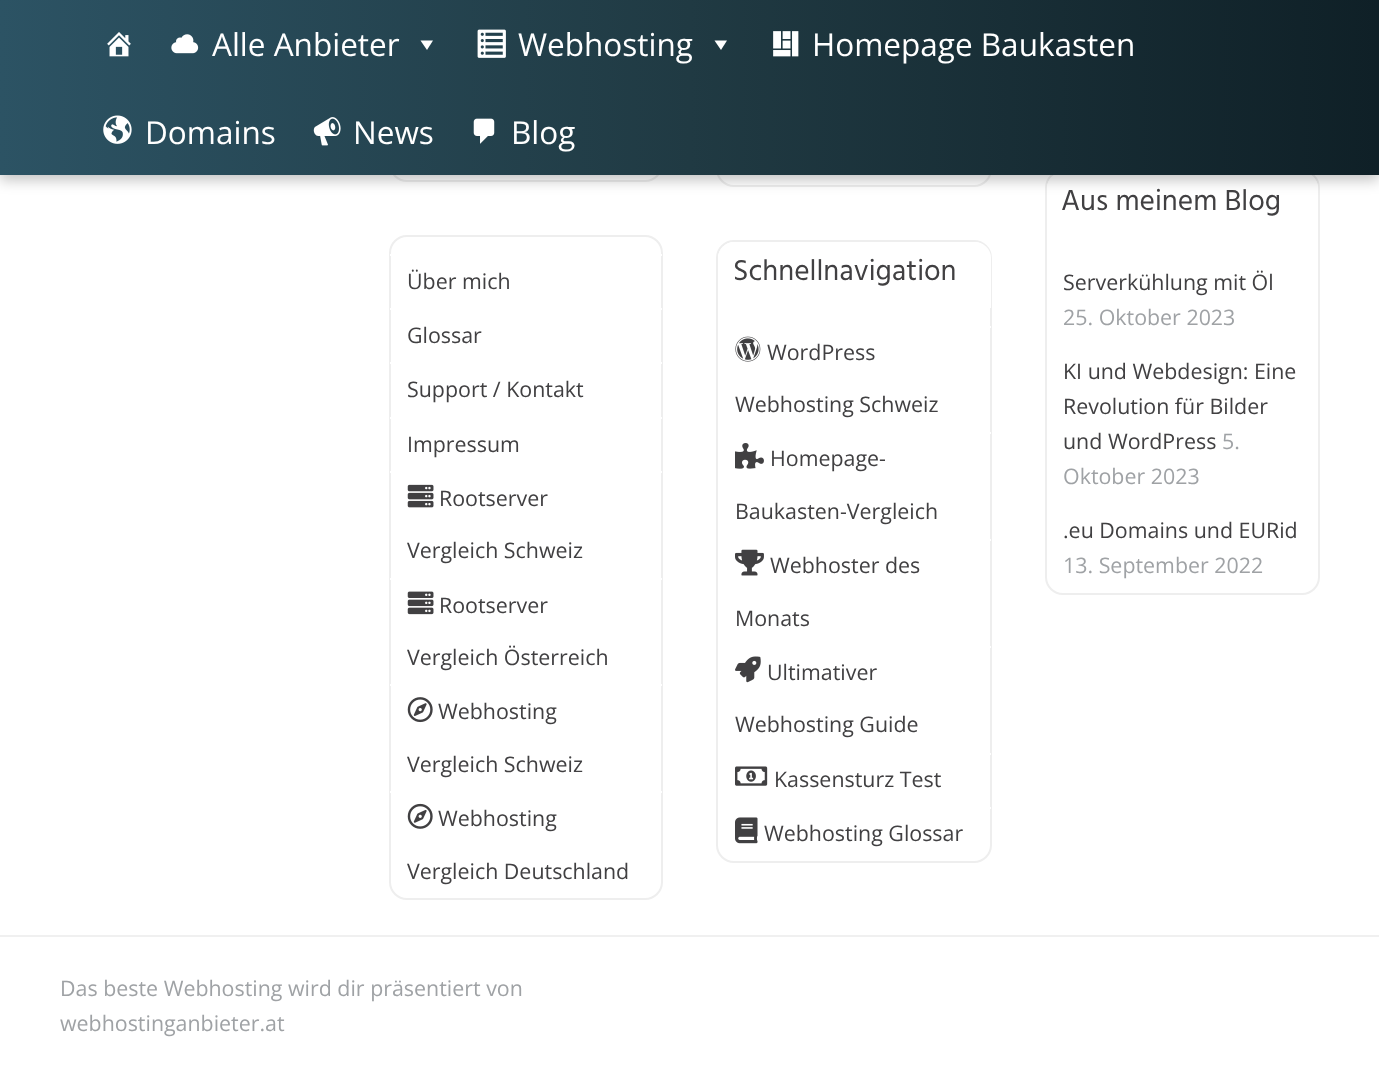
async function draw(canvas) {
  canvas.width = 1379;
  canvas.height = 1076;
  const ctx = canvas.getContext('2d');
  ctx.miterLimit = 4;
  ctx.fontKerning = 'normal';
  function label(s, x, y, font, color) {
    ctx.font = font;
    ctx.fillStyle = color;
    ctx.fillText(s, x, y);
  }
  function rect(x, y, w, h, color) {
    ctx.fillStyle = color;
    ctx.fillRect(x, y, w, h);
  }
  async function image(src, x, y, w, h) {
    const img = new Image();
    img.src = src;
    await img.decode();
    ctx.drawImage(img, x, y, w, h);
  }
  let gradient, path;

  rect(0, 0, 1379, 1076, '#fff');
  ctx.beginPath();
  ctx.roundRect(390, -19, 272, 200, 17);
  ctx.strokeStyle = '#eee';
  ctx.lineWidth = 2;
  ctx.stroke();
  ctx.beginPath();
  ctx.roundRect(717, -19, 274, 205, 17);
  ctx.stroke();
  ctx.beginPath();
  ctx.roundRect(1046, 171, 273, 423, 17);
  ctx.stroke();
  ctx.beginPath();
  ctx.roundRect(1047, 172, 271, 66, [16, 16, 0, 0]);
  ctx.fill();
  ctx.fillStyle = '#0000003d';
  ctx.filter = 'blur(7px)';
  ctx.beginPath();
  ctx.rect(0, 5, 1379, 175);
  ctx.fill();
  ctx.filter = 'none';
  gradient = ctx.createLinearGradient(0, 88, 1379, 87);
  gradient.addColorStop(0, '#2c5364');
  gradient.addColorStop(0.5, '#203a43');
  gradient.addColorStop(1, '#0f2027');
  ctx.fillStyle = gradient;
  ctx.fillRect(0, 0, 1379, 175);
  await image('assets/img1.png', 107, 32, 24, 25);
  await image('assets/img2.png', 171, 34, 28, 20);
  label('Alle Anbieter', 212, 56, '31.5px Open Sans', '#fff');
  path = new Path2D('M433 40.5L427 50L420.5 40.5Z');
  ctx.fill(path);
  await image('assets/img3.png', 477, 29, 29, 29);
  label('Webhosting', 518, 56, '31.5px Open Sans', '#fff');
  path = new Path2D('M727 40.5L721 50L714.5 40.5Z');
  ctx.fill(path);
  await image('assets/img4.png', 773, 31, 26, 26);
  label('Homepage Baukasten', 812, 56, '31.5px Open Sans', '#fff');
  await image('assets/img5.png', 103, 115, 29, 29);
  label('Domains', 145, 144, '31.5px Open Sans', '#fff');
  await image('assets/img6.png', 313, 117, 28, 29);
  label('News', 353, 144, '31.5px Open Sans', '#fff');
  await image('assets/img7.png', 473, 118, 22, 26);
  label('Blog', 511, 144, '31.5px Open Sans', '#fff');
  ctx.beginPath();
  ctx.roundRect(390, 236, 272, 663, 17);
  ctx.stroke();
  rect(390, 254, 272, 2, '#fff');
  label('Über mich', 407, 289, '21.4px Open Sans', '#414042');
  rect(390, 308, 272, 2, '#fff');
  label('Glossar', 407, 343, '21.4px Open Sans', '#414042');
  rect(390, 362, 272, 2, '#fff');
  label('Support / Kontakt', 407, 397, '21.4px Open Sans', '#414042');
  rect(390, 417, 272, 2, '#fff');
  label('Impressum', 407, 452, '21.4px Open Sans', '#414042');
  rect(390, 471, 272, 2, '#fff');
  await image('assets/img8.png', 407, 484, 27, 24);
  label('Rootserver', 439, 506, '21.4px Open Sans', '#414042');
  label('Vergleich Schweiz', 407, 558, '21.4px Open Sans', '#414042');
  rect(390, 578, 272, 2, '#fff');
  await image('assets/img9.png', 407, 591, 27, 24);
  label('Rootserver', 439, 613, '21.4px Open Sans', '#414042');
  label('Vergleich Österreich', 407, 665, '21.4px Open Sans', '#414042');
  rect(390, 684, 272, 2, '#fff');
  await image('assets/img10.png', 407, 697, 26, 26);
  label('Webhosting', 438, 719, '21.4px Open Sans', '#414042');
  label('Vergleich Schweiz', 407, 772, '21.4px Open Sans', '#414042');
  rect(390, 791, 272, 2, '#fff');
  await image('assets/img11.png', 407, 803, 26, 26);
  label('Webhosting', 438, 826, '21.4px Open Sans', '#414042');
  label('Vergleich Deutschland', 407, 879, '21.4px Open Sans', '#414042');
  ctx.beginPath();
  ctx.roundRect(717, 241, 274, 621, 17);
  ctx.stroke();
  ctx.fillStyle = '#fff';
  ctx.beginPath();
  ctx.roundRect(718, 242, 273, 66, [16, 16, 0, 0]);
  ctx.fill();
  label('Schnellnavigation', 733, 280, '29.5px Hind', '#414042');
  rect(990, 326, 1, 2, '#fff');
  await image('assets/img12.png', 735, 336, 26, 26);
  label('WordPress', 767, 360, '21.4px Open Sans', '#414042');
  label('Webhosting Schweiz', 735, 412, '21.4px Open Sans', '#414042');
  rect(990, 432, 1, 2, '#fff');
  await image('assets/img13.png', 735, 443, 29, 26);
  label('Homepage-', 770, 466, '21.4px Open Sans', '#414042');
  label('Baukasten-Vergleich', 735, 519, '21.4px Open Sans', '#414042');
  rect(990, 539, 1, 2, '#fff');
  await image('assets/img14.png', 735, 549, 29, 27);
  label('Webhoster des', 770, 573, '21.4px Open Sans', '#414042');
  label('Monats', 735, 626, '21.4px Open Sans', '#414042');
  rect(990, 646, 1, 2, '#fff');
  await image('assets/img15.png', 735, 656, 26, 27);
  label('Ultimativer', 767, 680, '21.4px Open Sans', '#414042');
  label('Webhosting Guide', 735, 732, '21.4px Open Sans', '#414042');
  rect(990, 753, 1, 2, '#fff');
  await image('assets/img16.png', 735, 766, 33, 20);
  label('Kassensturz Test', 774, 787, '21.4px Open Sans', '#414042');
  rect(990, 807, 1, 2, '#fff');
  await image('assets/img17.png', 735, 817, 23, 27);
  label('Webhosting Glossar', 764, 841, '21.4px Open Sans', '#414042');
  label('Aus meinem Blog', 1061, 210, '29.5px Hind', '#414042');
  label('Serverkühlung mit Öl', 1063, 290, '21.4px Open Sans', '#414042');
  label('25. Oktober 2023', 1063, 325, '21.4px Open Sans', '#9fa2a5');
  label('KI und Webdesign: Eine', 1063, 379, '21.4px Open Sans', '#414042');
  label('Revolution für Bilder', 1063, 414, '21.4px Open Sans', '#414042');
  label('und WordPress', 1063, 449, '21.4px Open Sans', '#414042');
  label('5.', 1222, 449, '21.4px Open Sans', '#9fa2a5');
  label('Oktober 2023', 1063, 484, '21.4px Open Sans', '#9fa2a5');
  label('.eu Domains und EURid', 1063, 538, '21.4px Open Sans', '#414042');
  label('13. September 2022', 1063, 573, '21.4px Open Sans', '#9fa2a5');
  rect(0, 935, 1379, 2, '#f0f0f0');
  label('Das beste Webhosting wird dir präsentiert von', 60, 996, '21.4px Open Sans', '#9fa2a5');
  label('webhostinganbieter.at', 60, 1031, '21.4px Open Sans', '#9fa2a5');
}

draw(document.querySelector('canvas'));
